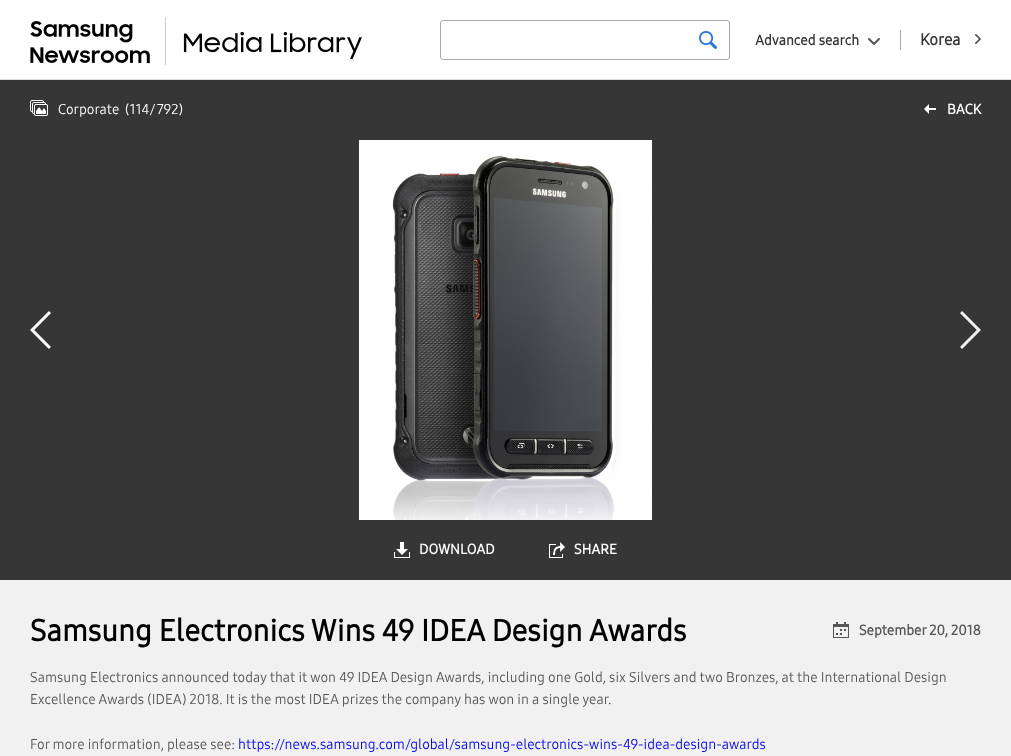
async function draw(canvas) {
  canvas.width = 1011;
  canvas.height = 756;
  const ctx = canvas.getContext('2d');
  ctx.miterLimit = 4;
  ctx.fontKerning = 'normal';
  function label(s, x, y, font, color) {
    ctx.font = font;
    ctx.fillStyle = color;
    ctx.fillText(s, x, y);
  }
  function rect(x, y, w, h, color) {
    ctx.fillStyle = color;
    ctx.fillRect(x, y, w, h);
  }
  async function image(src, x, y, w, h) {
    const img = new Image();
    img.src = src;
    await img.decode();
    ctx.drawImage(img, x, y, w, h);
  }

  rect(0, 0, 1011, 756, '#f1f1f1');
  rect(0, 0, 1011, 79, '#fff');
  rect(0, 79, 1011, 1, '#ddd');
  rect(165, 17, 1, 48, '#ccc');
  await image('assets/img1.png', 30, 21, 120, 43);
  await image('assets/img2.png', 183, 32, 179, 27);
  ctx.beginPath();
  ctx.roundRect(440.5, 20.5, 289, 39, 2.5);
  ctx.strokeStyle = '#aaa';
  ctx.stroke();
  await image('assets/img3.png', 699, 31, 18, 18);
  label('Advanced search', 755, 45, 'bold 14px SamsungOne', '#363636');
  await image('assets/img4.png', 868, 38, 12, 7);
  rect(900, 30, 1, 20, '#aaa');
  label('Korea', 920, 45, 'bold 16px SamsungOne', '#363636');
  await image('assets/img5.png', 975, 34, 6, 10);
  rect(0, 80, 1011, 440, '#363636');
  await image('assets/img6.png', 30, 100, 18, 16);
  label('Corporate', 58, 114, '14px SamsungOne', '#fff');
  label('(114/', 125, 114, '14px SamsungOne', '#fff');
  label('792)', 157, 114, '14px SamsungOne', '#fff');
  await image('assets/img7.png', 924, 104, 12, 10);
  label('BACK', 947, 114, 'bold 14px SamsungOne', '#fff');
  await image('assets/img8.png', 359, 140, 293, 380);
  await image('assets/img9.png', 30, 311, 21, 38);
  await image('assets/img10.png', 960, 311, 21, 38);
  rect(0, 520, 1011, 60, '#363636');
  await image('assets/img11.png', 394, 542, 16, 16);
  label('DOWNLOAD', 419, 554, 'bold 14px SamsungOne', '#fff');
  await image('assets/img12.png', 549, 542, 16, 16);
  label('SHARE', 574, 554, 'bold 14px SamsungOne', '#fff');
  label('Samsung Electronics Wins 49 IDEA Design Awards', 30, 641, 'bold 30px SamsungOne', '#000');
  await image('assets/img13.png', 833, 622, 16, 16);
  label('September 20, 2018', 859, 635, 'bold 14px SamsungOne', '#565656');
  label('Samsung Electronics announced today that it won 49 IDEA Design Awards, including one Gold, six Silvers and two Bronzes, at the International Design', 30, 682, '14px SamsungOne', '#565656');
  label('Excellence Awards (IDEA) 2018. It is the most IDEA prizes the company has won in a single year.', 30, 704, '14px SamsungOne', '#565656');
  label('For more information, please see:', 30, 749, '14px SamsungOne', '#565656');
  label('https://news.samsung.com/global/samsung-electronics-wins-49-idea-design-awards', 238, 749, '14px SamsungOne', '#00e');
}

draw(document.querySelector('canvas'));
